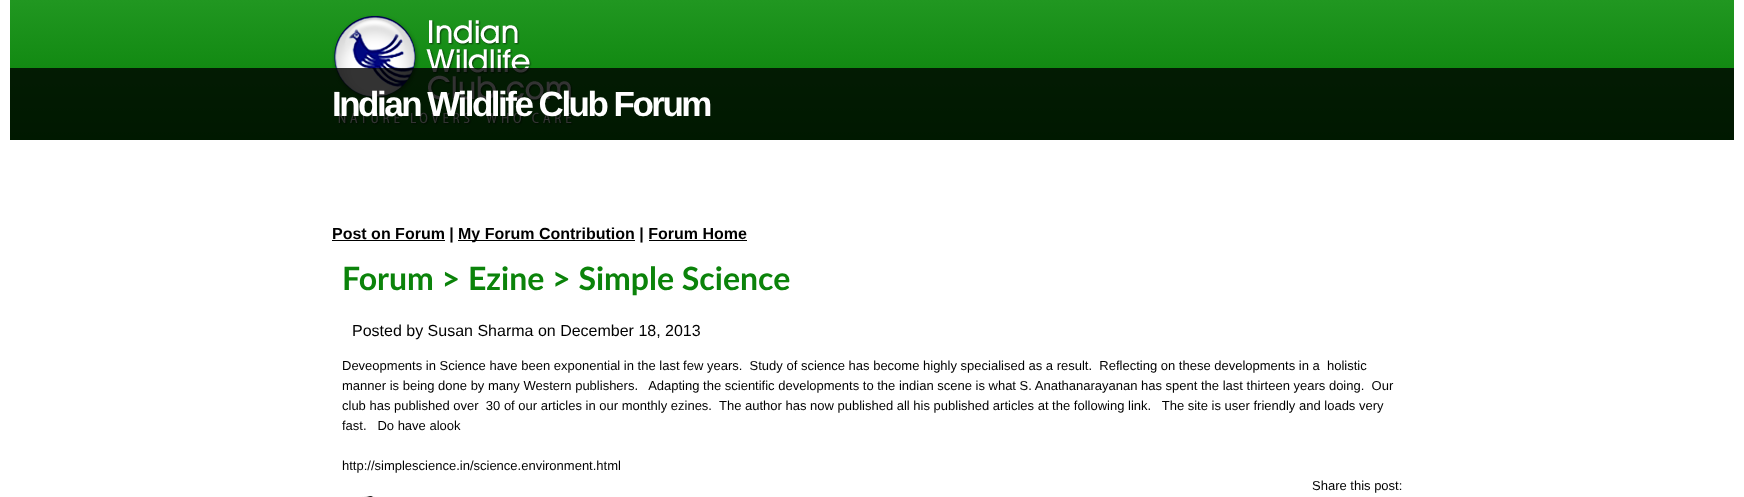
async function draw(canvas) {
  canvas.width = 1744;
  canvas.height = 497;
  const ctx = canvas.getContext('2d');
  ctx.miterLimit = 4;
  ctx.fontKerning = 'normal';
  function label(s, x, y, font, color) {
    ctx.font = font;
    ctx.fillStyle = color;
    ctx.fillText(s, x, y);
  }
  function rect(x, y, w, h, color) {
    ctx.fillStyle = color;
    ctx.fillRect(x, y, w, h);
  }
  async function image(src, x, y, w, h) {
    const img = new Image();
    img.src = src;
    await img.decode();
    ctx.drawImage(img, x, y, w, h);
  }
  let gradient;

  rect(0, 0, 1744, 497, '#fff');
  gradient = ctx.createLinearGradient(872, 0, 872, 140);
  gradient.addColorStop(0, '#219721');
  gradient.addColorStop(1, '#037c03');
  ctx.fillStyle = gradient;
  ctx.fillRect(10, 0, 1724, 140);
  await image('assets/img1.png', 332, 15, 241, 110);
  rect(10, 68, 1724, 72, '#000000cc');
  ctx.letterSpacing = '-2.5px';
  label('Indian Wildlife Club Forum', 332, 116, 'bold 35px Liberation Sans', '#fff');
  rect(332, 240, 113, 1, '#000');
  ctx.letterSpacing = '0px';
  label('Post on Forum |', 332, 239, 'bold 16px Liberation Sans', '#000');
  rect(458, 240, 177, 1, '#000');
  label('My Forum Contribution | Forum Home', 458, 239, 'bold 16px Liberation Sans', '#000');
  rect(649, 240, 98, 1, '#000');
  label('Forum > Ezine > Simple Science', 342, 290, 'bold 32px Lato', '#0b830a');
  label('Posted by Susan Sharma on December 18, 2013', 352, 336, '16px Liberation Sans', '#000');
  label('Deveopments in Science have been exponential in the last few years.  Study of science has become highly specialised as a result.  Reflecting on these developments in a  holistic', 342, 370, '13px Liberation Sans', '#000');
  label('manner is being done by many Western publishers.   Adapting the scientific developments to the indian scene is what S. Anathanarayanan has spent the last thirteen years doing.  Our', 342, 390, '13px Liberation Sans', '#000');
  label('club has published over  30 of our articles in our monthly ezines.  The author has now published all his published articles at the following link.   The site is user friendly and loads very', 342, 410, '13px Liberation Sans', '#000');
  label('fast.   Do have alook', 342, 430, '13px Liberation Sans', '#000');
  label('http://simplescience.in/science.environment.html', 342, 470, '13px Liberation Sans', '#000');
  label('Share this post:', 1312, 490, '13px Liberation Sans', '#000');
  await image('assets/img2.png', 362, 496, 13, 1);
}

draw(document.querySelector('canvas'));
